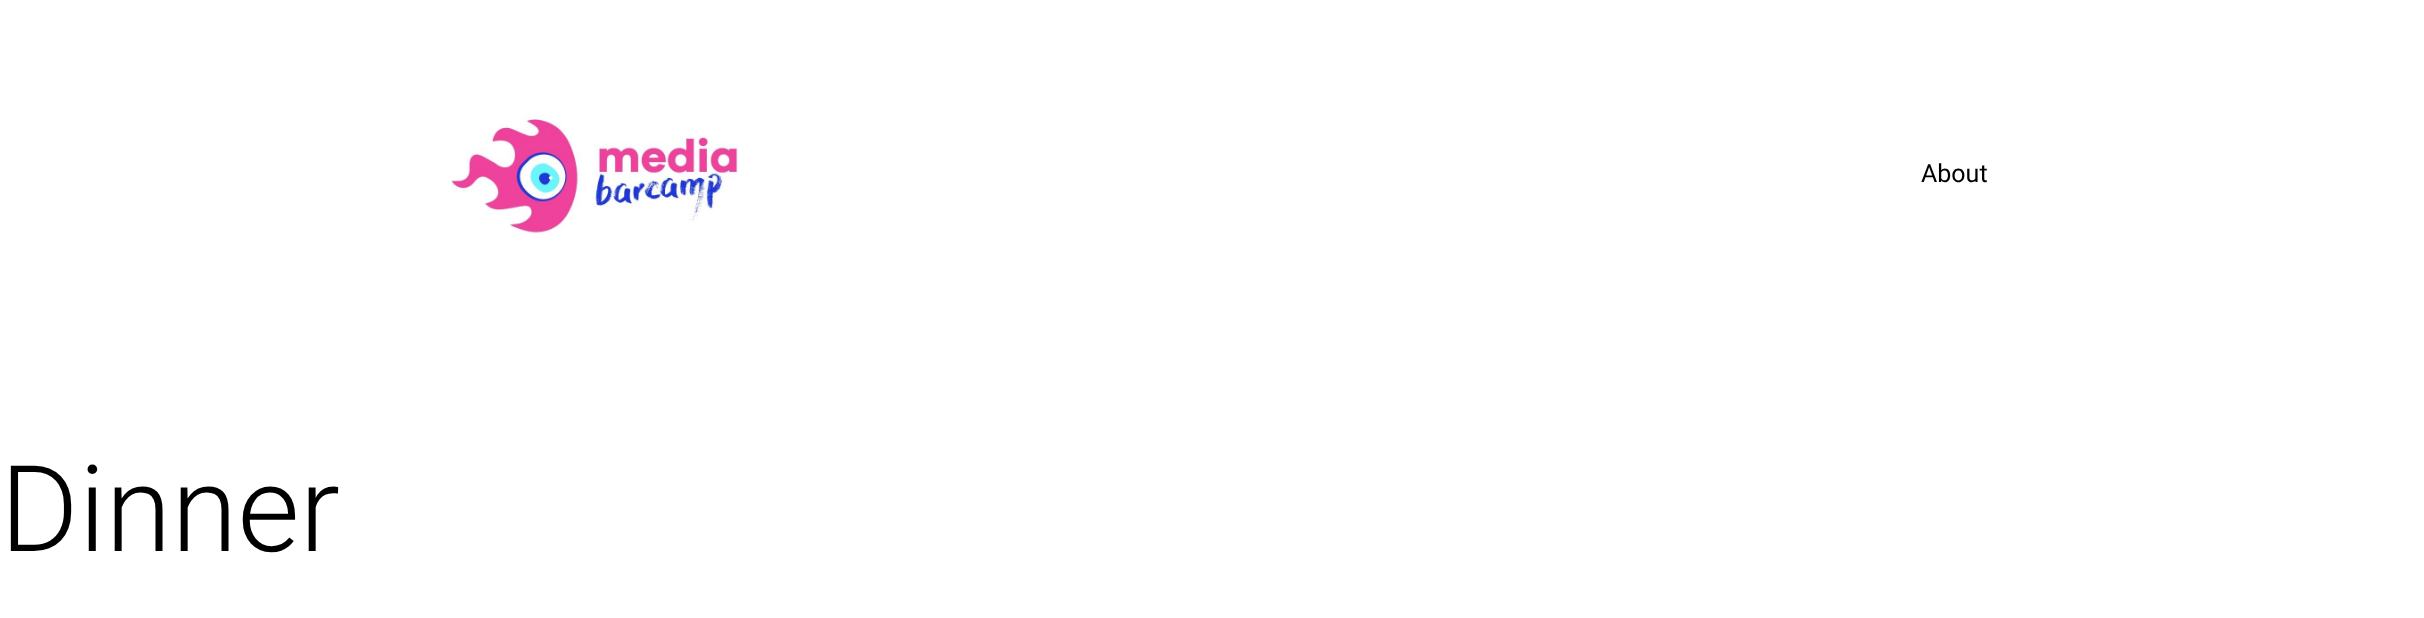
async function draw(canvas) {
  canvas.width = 2424;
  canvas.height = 618;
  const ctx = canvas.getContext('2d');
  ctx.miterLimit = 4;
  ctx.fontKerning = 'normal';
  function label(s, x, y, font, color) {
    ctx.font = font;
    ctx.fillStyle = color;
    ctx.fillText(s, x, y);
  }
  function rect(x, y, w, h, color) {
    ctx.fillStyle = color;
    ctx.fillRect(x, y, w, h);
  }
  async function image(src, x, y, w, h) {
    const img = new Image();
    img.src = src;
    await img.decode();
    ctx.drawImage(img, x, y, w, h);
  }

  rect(0, 0, 2424, 618, '#fff');
  await image('assets/img1.png', 451, 114, 287, 121);
  label('About', 1921, 182, '25px Roboto', '#000');
  label('Dinner', 0, 551, '300 120px Roboto', '#000');
}

draw(document.querySelector('canvas'));
